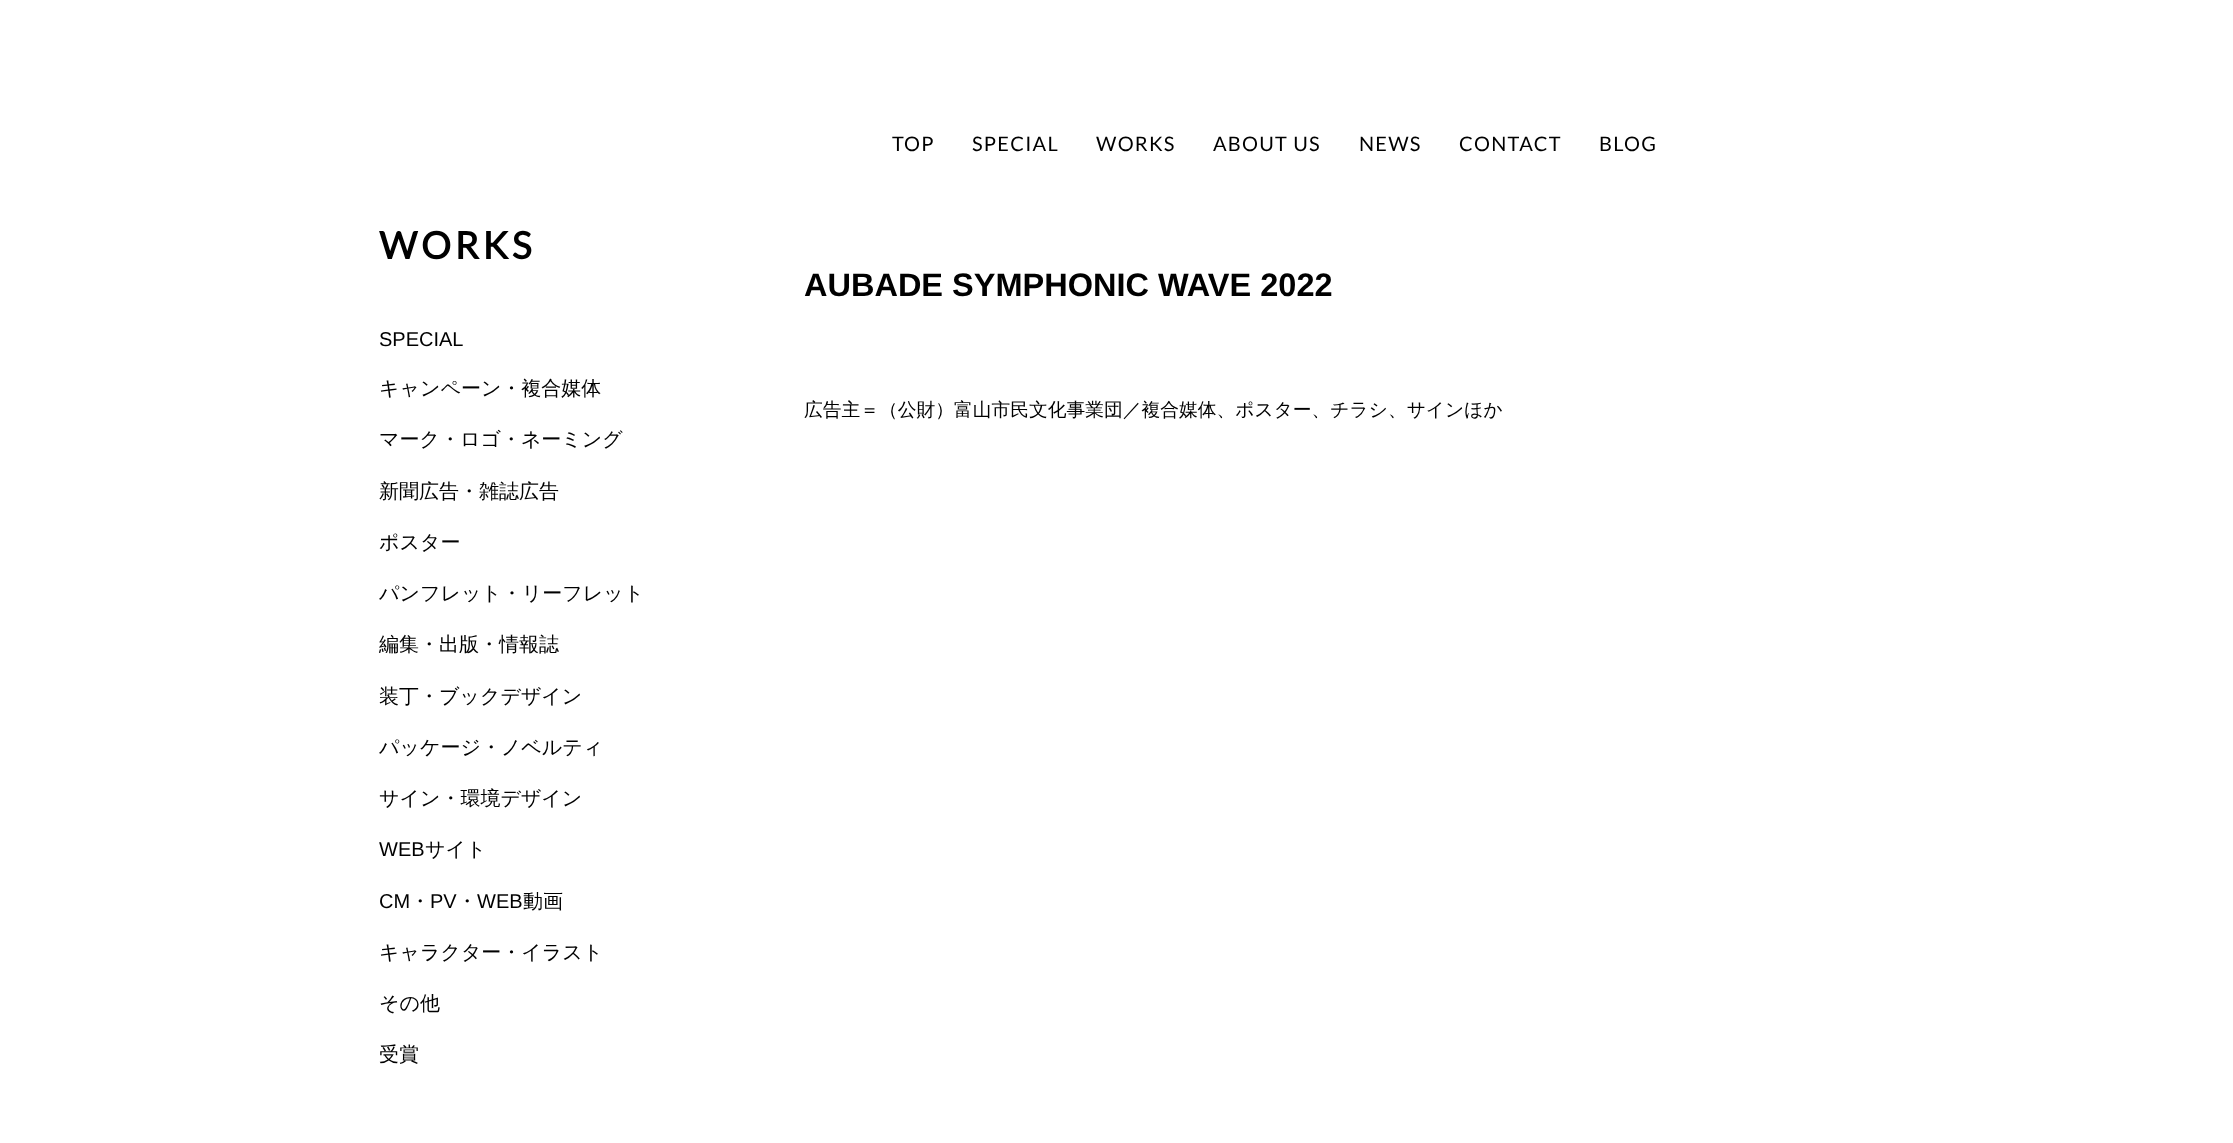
async function draw(canvas) {
  canvas.width = 2233;
  canvas.height = 1143;
  const ctx = canvas.getContext('2d');
  ctx.miterLimit = 4;
  ctx.fontKerning = 'normal';
  function label(s, x, y, font, color) {
    ctx.font = font;
    ctx.fillStyle = color;
    ctx.fillText(s, x, y);
  }
  function rect(x, y, w, h, color) {
    ctx.fillStyle = color;
    ctx.fillRect(x, y, w, h);
  }

  rect(0, 0, 2233, 1143, '#fff');
  ctx.letterSpacing = '1.25px';
  label('TOP', 892, 151, '20px Lato', '#000');
  label('SPECIAL', 972, 151, '20px Lato', '#000');
  label('WORKS', 1096, 151, '20px Lato', '#000');
  label('ABOUT US', 1213, 151, '20px Lato', '#000');
  label('NEWS', 1359, 151, '20px Lato', '#000');
  label('CONTACT', 1459, 151, '20px Lato', '#000');
  label('BLOG', 1599, 151, '20px Lato', '#000');
  ctx.letterSpacing = '3.75px';
  label('WORKS', 379, 259, 'bold 37.5px Lato', '#000');
  ctx.letterSpacing = '0px';
  label('SPECIAL', 379, 346, '20px Liberation Sans', '#000');
  label('キャンペーン・複合媒体', 379, 395, '500 20px WenQuanYi Zen Hei', '#000');
  label('マーク・ロゴ・ネーミング', 379, 446, '500 20px WenQuanYi Zen Hei', '#000');
  label('新聞広告・雑誌広告', 379, 498, '500 20px WenQuanYi Zen Hei', '#000');
  label('ポスター', 379, 549, '500 20px WenQuanYi Zen Hei', '#000');
  label('パンフレット・リーフレット', 379, 600, '500 20px WenQuanYi Zen Hei', '#000');
  label('編集・出版・情報誌', 379, 651, '500 20px WenQuanYi Zen Hei', '#000');
  label('装丁・ブックデザイン', 379, 703, '500 20px WenQuanYi Zen Hei', '#000');
  label('パッケージ・ノベルティ', 379, 754, '500 20px WenQuanYi Zen Hei', '#000');
  label('サイン・環境デザイン', 379, 805, '500 20px WenQuanYi Zen Hei', '#000');
  label('WEB', 379, 856, '20px Liberation Sans', '#000');
  label('サイト', 425, 856, '500 20px WenQuanYi Zen Hei', '#000');
  label('CM', 379, 908, '20px Liberation Sans', '#000');
  label('・', 410, 908, '500 20px WenQuanYi Zen Hei', '#000');
  label('PV', 430, 908, '20px Liberation Sans', '#000');
  label('・', 457, 908, '500 20px WenQuanYi Zen Hei', '#000');
  label('WEB', 477, 908, '20px Liberation Sans', '#000');
  label('動画', 523, 908, '500 20px WenQuanYi Zen Hei', '#000');
  label('キャラクター・イラスト', 379, 959, '500 20px WenQuanYi Zen Hei', '#000');
  label('その他', 379, 1010, '500 20px WenQuanYi Zen Hei', '#000');
  label('受賞', 379, 1061, '500 20px WenQuanYi Zen Hei', '#000');
  label('AUBADE SYMPHONIC WAVE 2022', 804, 296, 'bold 32.5px Liberation Sans', '#000');
  label('広告主＝（公財）富山市民文化事業団／複合媒体、ポスター、チラシ、サインほか', 804, 416, '500 18.75px WenQuanYi Zen Hei', '#000');
}

draw(document.querySelector('canvas'));
